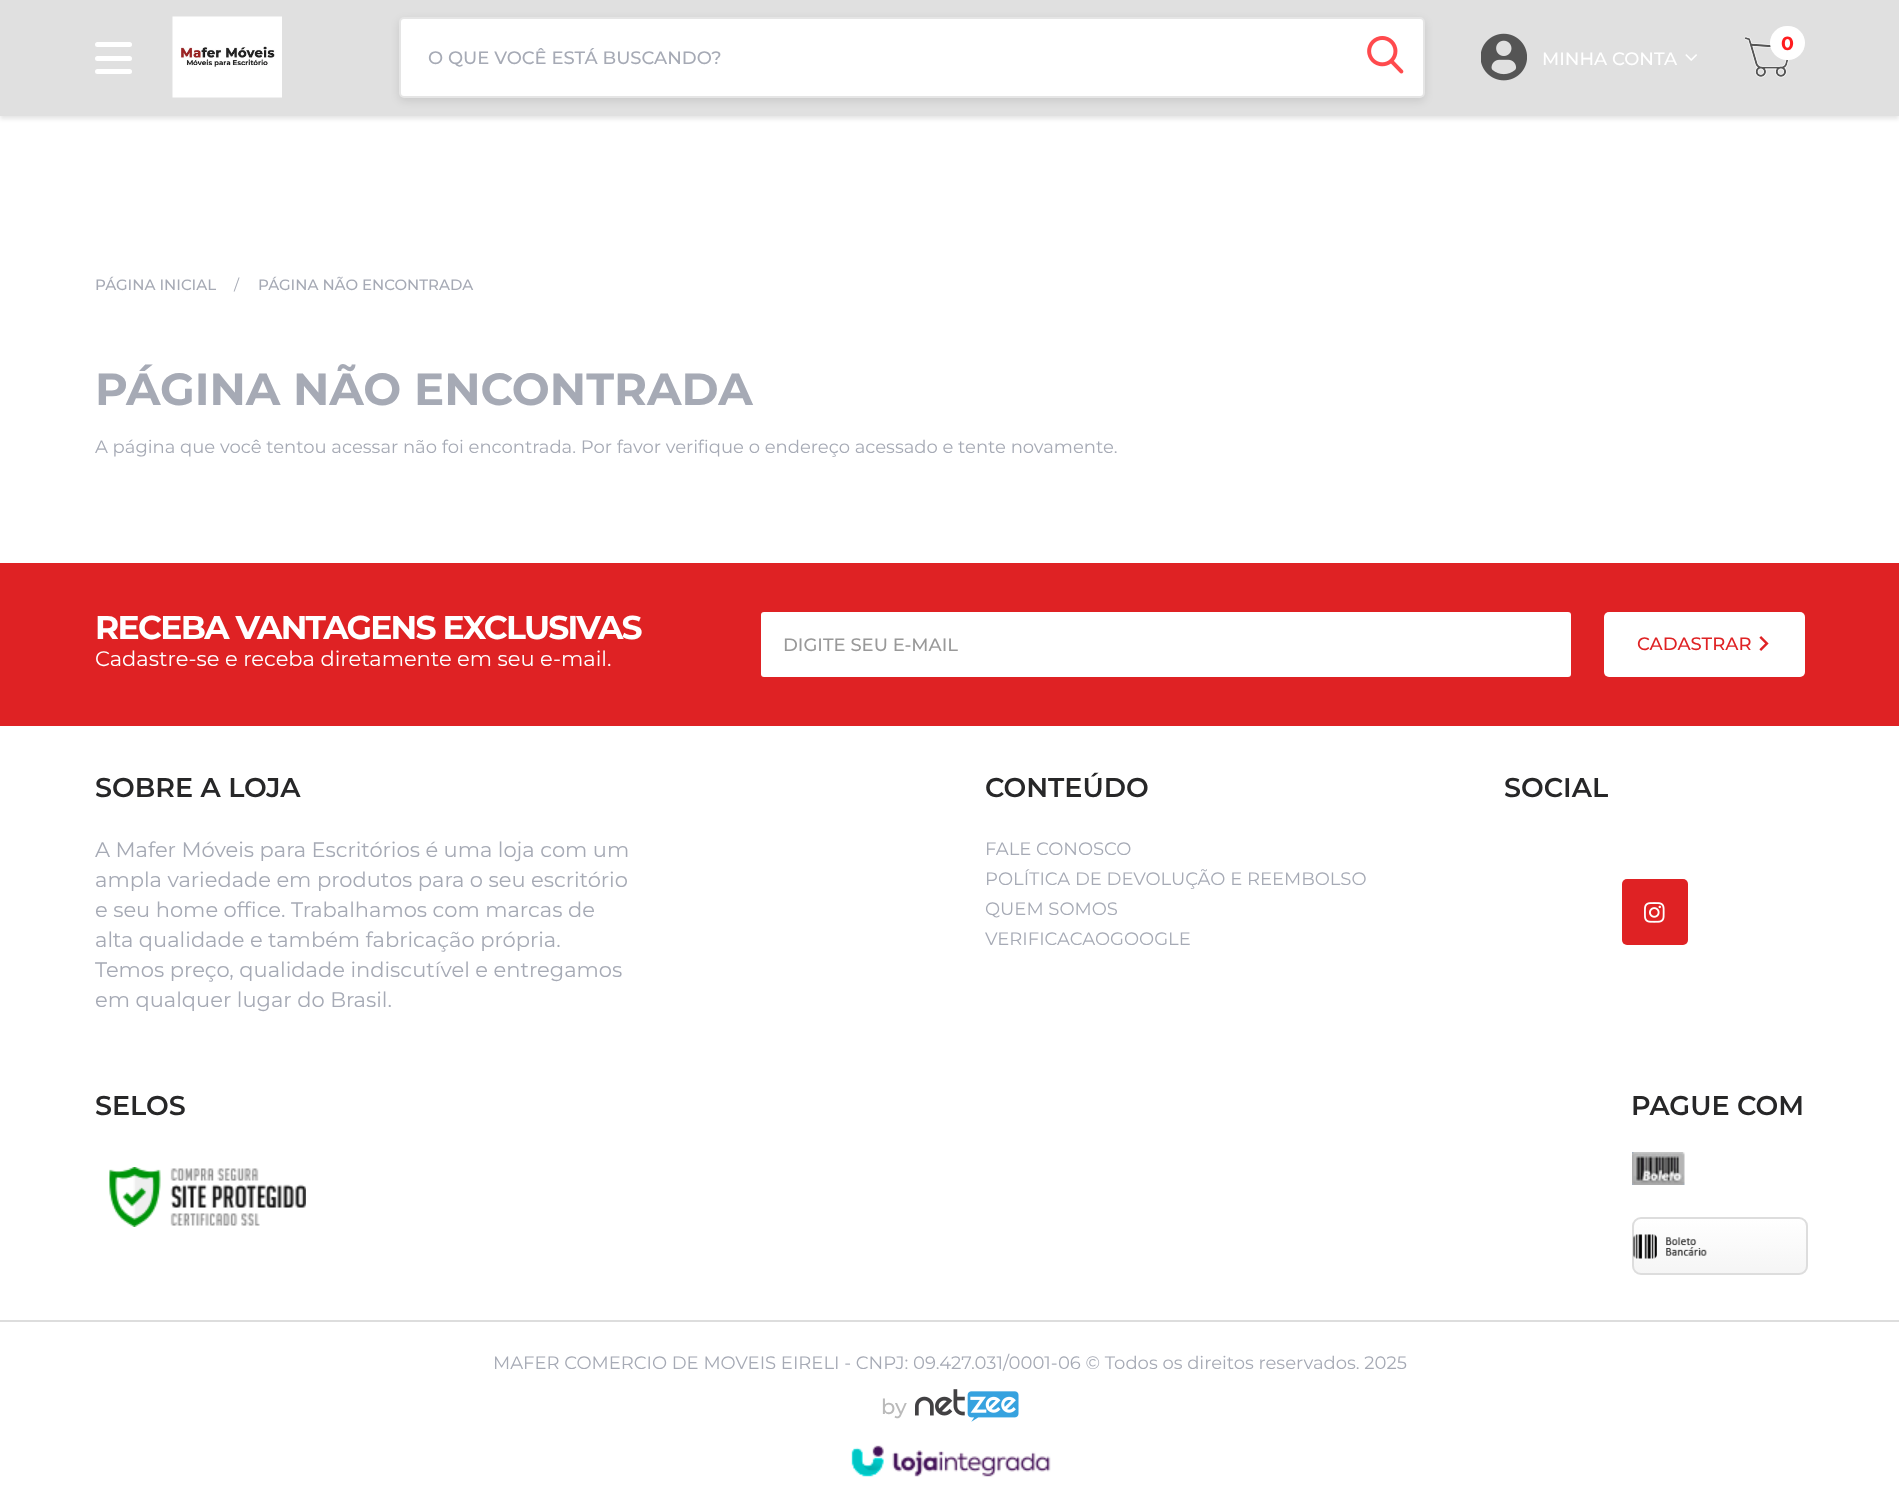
async function draw(canvas) {
  canvas.width = 1899;
  canvas.height = 1500;
  const ctx = canvas.getContext('2d');
  ctx.miterLimit = 4;
  ctx.fontKerning = 'normal';
  function label(s, x, y, font, color) {
    ctx.font = font;
    ctx.fillStyle = color;
    ctx.fillText(s, x, y);
  }
  function rect(x, y, w, h, color) {
    ctx.fillStyle = color;
    ctx.fillRect(x, y, w, h);
  }
  function roundedRect(x, y, w, h, r, color) {
    ctx.fillStyle = color;
    ctx.beginPath();
    ctx.roundRect(x, y, w, h, r);
    ctx.fill();
  }
  async function image(src, x, y, w, h) {
    const img = new Image();
    img.src = src;
    await img.decode();
    ctx.drawImage(img, x, y, w, h);
  }
  let gradient;

  rect(0, 0, 1899, 1500, '#fff');
  ctx.fillStyle = '#0000001a';
  ctx.filter = 'blur(2px)';
  ctx.beginPath();
  ctx.rect(0, 3, 1899, 116);
  ctx.fill();
  ctx.filter = 'none';
  rect(0, 0, 1899, 116, '#e0e0e0');
  roundedRect(95, 42, 37, 5, 2.5, '#fff');
  roundedRect(95, 56, 37, 5, 2.5, '#fff');
  roundedRect(95, 69, 37, 5, 2.5, '#fff');
  await image('assets/img1.png', 172, 16, 110, 82);
  ctx.fillStyle = '#0000001a';
  ctx.filter = 'blur(4.5px)';
  ctx.beginPath();
  ctx.roundRect(399, 20, 1026, 81, 5);
  ctx.fill();
  ctx.filter = 'none';
  ctx.fillStyle = '#fff';
  ctx.beginPath();
  ctx.roundRect(400, 18, 1024, 79, 4);
  ctx.fill();
  ctx.strokeStyle = '#e5e5e5';
  ctx.lineWidth = 2;
  ctx.stroke();
  label('O QUE VOCÊ ESTÁ BUSCANDO?', 428, 64, '500 18px Montserrat', '#a6aab5');
  await image('assets/img2.png', 1367, 36, 37, 38);
  await image('assets/img3.png', 1745, 36, 45, 42);
  roundedRect(1770, 26, 35, 34, 17, '#fff');
  label('0', 1781, 50, 'bold 19px Montserrat', '#ff1c1f');
  await image('assets/img4.png', 1481, 33, 46, 48);
  label('MINHA CONTA', 1542, 65, '500 18px Montserrat', '#fff');
  await image('assets/img5.png', 1685, 54, 12, 7);
  label('PÁGINA INICIAL', 95, 290, '500 15px Montserrat', '#a6aab5');
  label('/', 234, 290, '15px Montserrat', '#a6aab5');
  label('PÁGINA NÃO ENCONTRADA', 258, 290, '500 15px Montserrat', '#a6aab5');
  label('PÁGINA NÃO ENCONTRADA', 95, 405, 'bold 45px Montserrat', '#a6aab5');
  label('A página que você tentou acessar não foi encontrada. Por favor verifique o endereço acessado e tente novamente.', 95, 453, '18px Montserrat', '#a6aab5');
  rect(0, 563, 1899, 163, '#df2224');
  ctx.letterSpacing = '-1.7px';
  label('RECEBA VANTAGENS EXCLUSIVAS', 95, 639, 'bold 33px Montserrat', '#fff');
  ctx.letterSpacing = '0px';
  label('Cadastre-se e receba diretamente em seu e-mail.', 95, 666, '21px Montserrat', '#fff');
  roundedRect(761, 612, 810, 65, 3, '#fff');
  label('DIGITE SEU E-MAIL', 783, 651, '500 18px Montserrat', '#999');
  roundedRect(1604, 612, 201, 65, 5, '#fff');
  label('CADASTRAR', 1637, 650, '500 18px Montserrat', '#df2224');
  await image('assets/img6.png', 1759, 636, 10, 15);
  label('SOBRE A LOJA', 95, 797, '600 27px Montserrat', '#272728');
  label('A Mafer Móveis para Escritórios é uma loja com um', 95, 857, '21px Montserrat', '#a6aab5');
  label('ampla variedade em produtos para o seu escritório', 95, 887, '21px Montserrat', '#a6aab5');
  label('e seu home office. Trabalhamos com marcas de', 95, 917, '21px Montserrat', '#a6aab5');
  label('alta qualidade e também fabricação própria.', 95, 947, '21px Montserrat', '#a6aab5');
  label('Temos preço, qualidade indiscutível e entregamos', 95, 977, '21px Montserrat', '#a6aab5');
  label('em qualquer lugar do Brasil.', 95, 1007, '21px Montserrat', '#a6aab5');
  label('CONTEÚDO', 985, 797, '600 27px Montserrat', '#272728');
  label('FALE CONOSCO', 985, 855, '18px Montserrat', '#a6aab5');
  label('POLÍTICA DE DEVOLUÇÃO E REEMBOLSO', 985, 885, '18px Montserrat', '#a6aab5');
  label('QUEM SOMOS', 985, 915, '18px Montserrat', '#a6aab5');
  label('VERIFICACAOGOOGLE', 985, 945, '18px Montserrat', '#a6aab5');
  label('SOCIAL', 1504, 797, '600 27px Montserrat', '#272728');
  roundedRect(1622, 879, 66, 66, 5, '#df2224');
  await image('assets/img7.png', 1644, 902, 21, 21);
  label('SELOS', 95, 1115, '600 27px Montserrat', '#272728');
  await image('assets/img8.png', 109, 1167, 197, 60);
  label('PAGUE COM', 1631, 1115, '600 27px Montserrat', '#272728');
  await image('assets/img9.png', 1632, 1152, 53, 33);
  ctx.save();
  ctx.beginPath();
  ctx.roundRect(1632, 1217, 176, 58, 9);
  ctx.clip();
  gradient = ctx.createLinearGradient(1720, 1218, 1720, 1274);
  gradient.addColorStop(0, '#fff');
  gradient.addColorStop(1, '#f5f5f5');
  ctx.fillStyle = gradient;
  ctx.fillRect(1632, 1218, 176, 56);
  ctx.restore();
  ctx.beginPath();
  ctx.roundRect(1633, 1218, 174, 56, 8);
  ctx.strokeStyle = '#ddd';
  ctx.stroke();
  await image('assets/img10.png', 1633, 1234, 74, 25);
  rect(0, 1320, 1899, 2, '#ddd');
  label('MAFER COMERCIO DE MOVEIS EIRELI - CNPJ: 09.427.031/0001-06 © Todos os direitos reservados. 2025', 493, 1369, '18px Montserrat', '#a6aab5');
  label('by', 881, 1414, '500 21px Montserrat', '#bababa');
  await image('assets/img11.png', 915, 1389, 104, 33);
  await image('assets/img12.png', 851, 1445, 200, 32);
}

draw(document.querySelector('canvas'));
